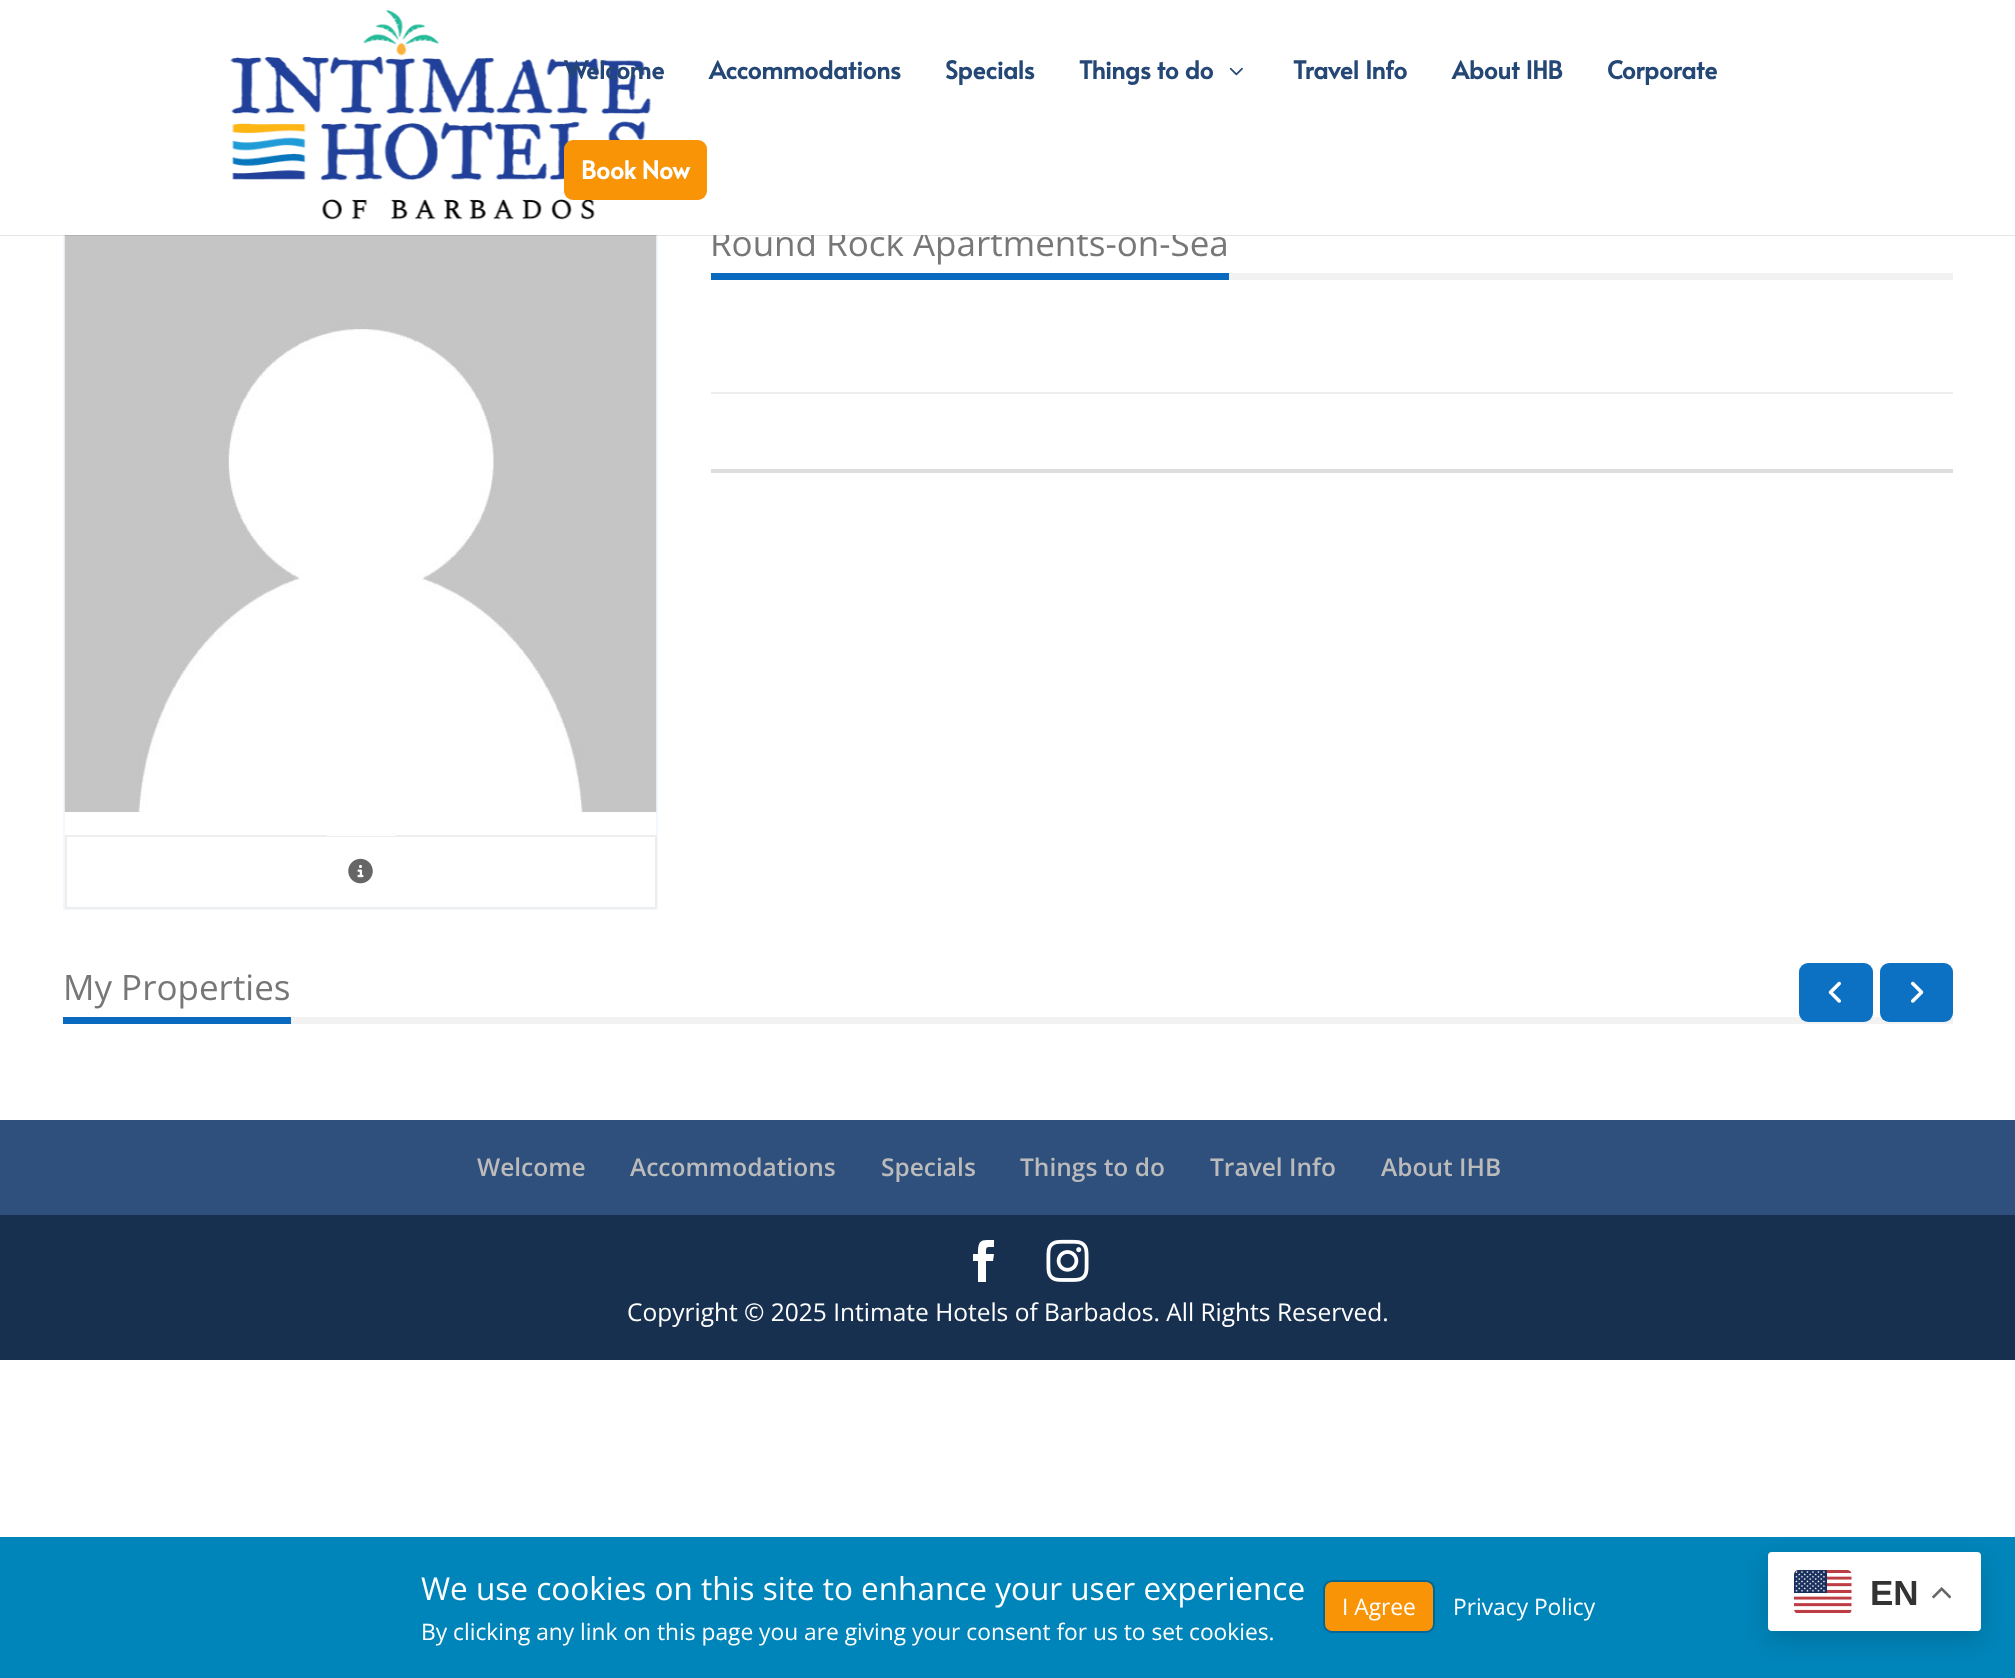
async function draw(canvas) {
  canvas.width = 2015;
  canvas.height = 1678;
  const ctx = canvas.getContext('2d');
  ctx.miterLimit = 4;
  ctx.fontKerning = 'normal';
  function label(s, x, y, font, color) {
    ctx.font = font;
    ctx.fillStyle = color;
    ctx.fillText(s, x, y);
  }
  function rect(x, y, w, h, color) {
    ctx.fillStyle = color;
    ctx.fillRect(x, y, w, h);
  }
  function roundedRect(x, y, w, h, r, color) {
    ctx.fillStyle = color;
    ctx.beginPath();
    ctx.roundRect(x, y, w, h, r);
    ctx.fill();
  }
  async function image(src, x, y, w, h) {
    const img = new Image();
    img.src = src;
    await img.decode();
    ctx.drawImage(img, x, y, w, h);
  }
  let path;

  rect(0, 0, 2015, 1678, '#fff');
  ctx.strokeStyle = '#f1f8ff';
  ctx.lineWidth = 2;
  ctx.strokeRect(64, 220, 593, 689);
  await image('assets/img3.png', 64, 235, 593, 577);
  rect(0, 235, 2015, 1, '#0000001a');
  label('Round Rock Apartments-on-Sea', 710, 256, '35px Open Sans', '#777');
  rect(63, 219, 1125, 16, '#fff');
  await image('assets/img1.png', 230, 10, 421, 210);
  label('Welcome', 564, 79, 'bold 24.5px Alata', '#244775');
  label('Accommodations', 709, 79, 'bold 24.5px Alata', '#244775');
  label('Specials', 945, 79, 'bold 24.5px Alata', '#244775');
  label('Things to do', 1079, 79, 'bold 24.5px Alata', '#244775');
  await image('assets/img2.png', 1229, 67, 14, 9);
  label('Travel Info', 1293, 79, 'bold 24.5px Alata', '#244775');
  label('About IHB', 1452, 79, 'bold 24.5px Alata', '#244775');
  label('Corporate', 1607, 79, 'bold 24.5px Alata', '#244775');
  roundedRect(564, 140, 143, 60, 9, '#f89406');
  label('Book Now', 581, 179, 'bold 24.5px Alata', '#fff');
  rect(65, 835, 591, 2, '#eee');
  ctx.fillStyle = '#fff';
  path = new Path2D('M396 836H326L360 808Z');
  ctx.fill(path);
  rect(655, 835, 2, 73, '#eee');
  rect(65, 907, 591, 2, '#eee');
  rect(65, 835, 2, 73, '#eee');
  await image('assets/img4.png', 348, 858, 25, 26);
  rect(1229, 273, 724, 7, '#f2f2f2');
  rect(711, 273, 518, 7, '#096abf');
  rect(711, 392, 1242, 2, '#eee');
  rect(711, 469, 1242, 4, '#ddd');
  rect(291, 1017, 1662, 7, '#f2f2f2');
  rect(63, 1017, 228, 7, '#096abf');
  label('My Properties', 63, 1000, '35px Open Sans', '#777');
  roundedRect(1799, 963, 74, 59, 9, '#0c71c3');
  await image('assets/img5.png', 1828, 981, 13, 22);
  roundedRect(1880, 963, 73, 59, 9, '#0c71c3');
  await image('assets/img6.png', 1911, 981, 13, 22);
  rect(0, 1120, 2015, 95, '#2f507c');
  label('Welcome', 477, 1176, '600 24.5px Open Sans', '#bbb');
  label('Accommodations', 630, 1176, '600 24.5px Open Sans', '#bbb');
  label('Specials', 881, 1176, '600 24.5px Open Sans', '#bbb');
  label('Things to do', 1020, 1176, '600 24.5px Open Sans', '#bbb');
  label('Travel Info', 1210, 1176, '600 24.5px Open Sans', '#bbb');
  label('About IHB', 1381, 1176, '600 24.5px Open Sans', '#bbb');
  rect(0, 1215, 2015, 145, '#18304f');
  ctx.fillStyle = '#fff';
  path = new Path2D('M978 1282H986V1261H993L994 1254H986C986 1246 986 1247 994 1247V1240C981 1240 978 1239 978 1254H973V1261H978Z');
  ctx.fill(path);
  await image('assets/img7.png', 1046, 1239, 43, 43);
  label('Copyright © 2025 Intimate Hotels of Barbados. All Rights Reserved.', 627, 1321, '24.5px Open Sans', '#fff');
  rect(0, 1537, 2015, 141, '#0085ba');
  label('We use cookies on this site to enhance your user experience', 421, 1600, '31.5px Open Sans', '#fff');
  label('By clicking any link on this page you are giving your consent for us to set cookies.', 421, 1640, '22.75px Open Sans', '#fff');
  ctx.fillStyle = '#f89406';
  ctx.beginPath();
  ctx.roundRect(1324, 1581, 110, 51, 8);
  ctx.fill();
  ctx.strokeStyle = '#006799';
  ctx.stroke();
  label('I Agree', 1342, 1615, '22.75px Open Sans', '#fff');
  label('Privacy Policy', 1453, 1615, '22.75px Open Sans', '#fff');
  ctx.fillStyle = '#00000026';
  ctx.filter = 'blur(13px)';
  ctx.beginPath();
  ctx.roundRect(1768, 1561, 213, 79, 4);
  ctx.fill();
  ctx.filter = 'none';
  roundedRect(1768, 1552, 213, 79, 4, '#fff');
  await image('assets/img8.png', 1794, 1570, 58, 43);
  label('EN', 1870, 1605, 'bold 35px Liberation Sans', '#333');
  await image('assets/img9.png', 1932, 1587, 19, 12);
}

draw(document.querySelector('canvas'));
